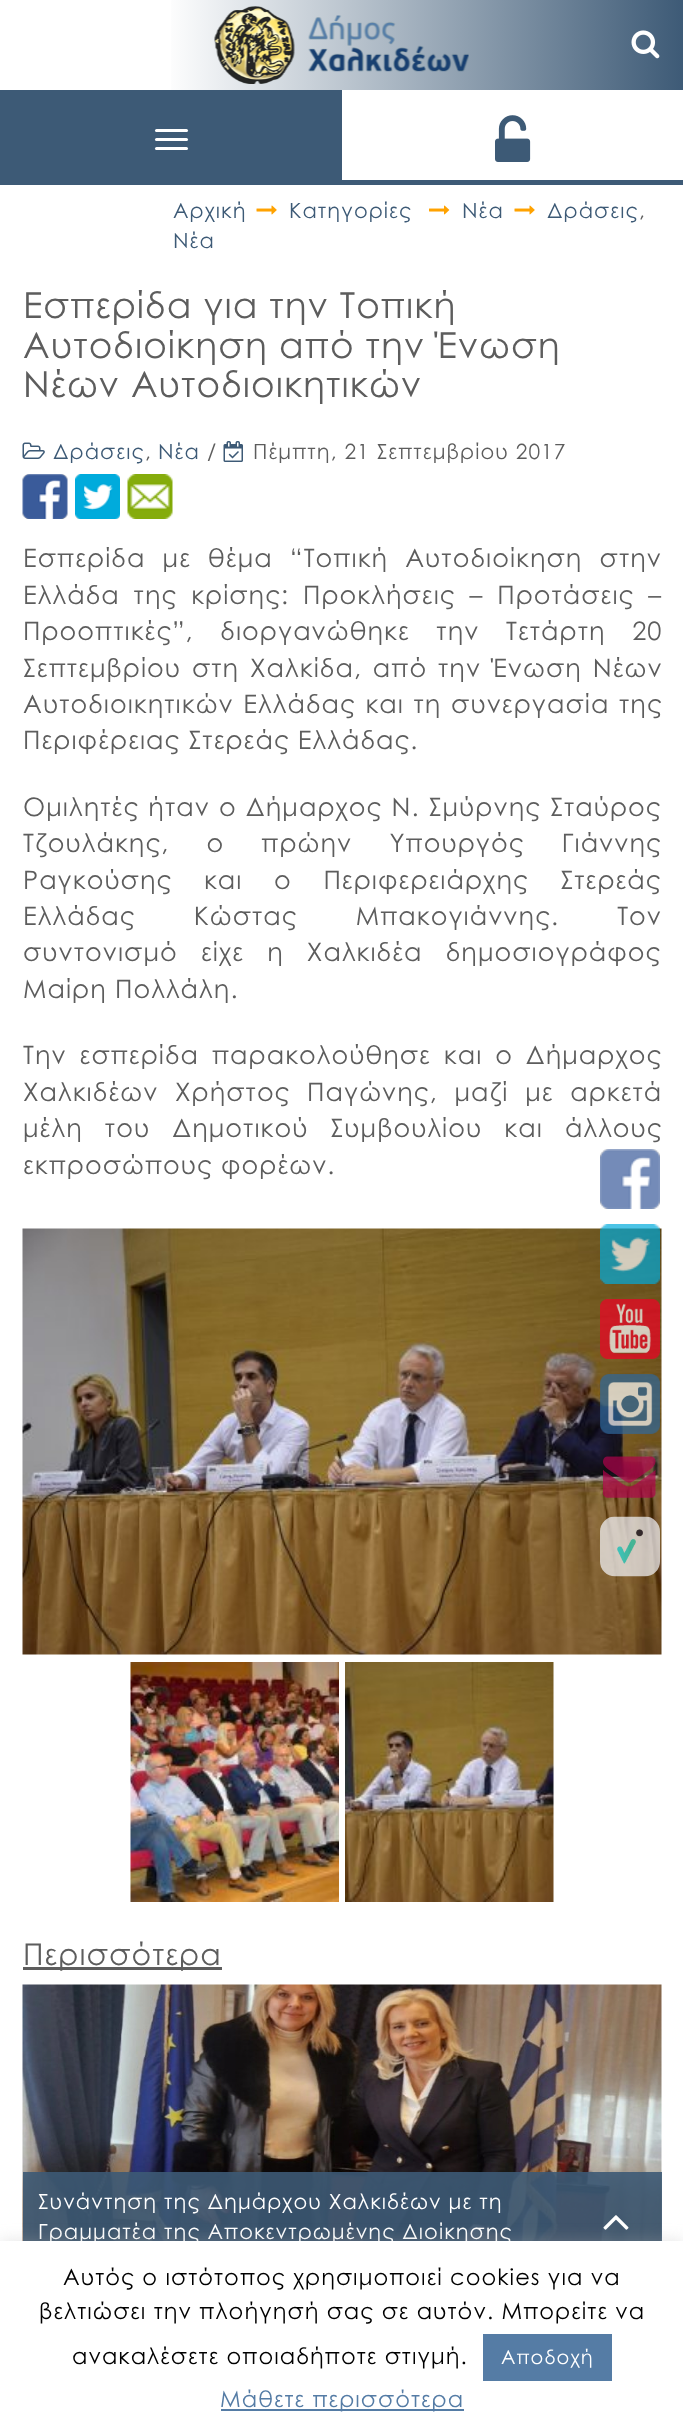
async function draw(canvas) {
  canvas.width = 683;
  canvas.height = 2432;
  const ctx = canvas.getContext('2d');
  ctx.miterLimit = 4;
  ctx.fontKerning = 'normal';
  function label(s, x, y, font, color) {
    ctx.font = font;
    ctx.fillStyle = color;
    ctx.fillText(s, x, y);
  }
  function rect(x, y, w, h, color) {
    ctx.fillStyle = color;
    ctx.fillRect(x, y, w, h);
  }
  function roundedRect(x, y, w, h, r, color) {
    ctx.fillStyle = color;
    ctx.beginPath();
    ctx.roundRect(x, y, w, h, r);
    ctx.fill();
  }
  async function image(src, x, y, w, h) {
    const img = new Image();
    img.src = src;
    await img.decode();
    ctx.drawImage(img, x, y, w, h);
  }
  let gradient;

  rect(0, 0, 683, 2432, '#fff');
  gradient = ctx.createLinearGradient(0, 45, 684, 45);
  gradient.addColorStop(0.24, '#fff');
  gradient.addColorStop(1, '#3d5a76');
  gradient.addColorStop(1, '#7db9e8');
  ctx.fillStyle = gradient;
  ctx.fillRect(171, 0, 512, 90);
  await image('assets/img1.png', 214, 6, 81, 78);
  await image('assets/img2.png', 308, 15, 161, 57);
  rect(0, 180, 683, 5, '#3d5a76');
  await image('assets/img3.png', 631, 30, 29, 29);
  rect(0, 90, 342, 90, '#3d5a76');
  roundedRect(155, 129, 33, 3, 1.5, '#fff');
  roundedRect(155, 138, 33, 3, 1.5, '#fff');
  roundedRect(155, 147, 33, 3, 1.5, '#fff');
  await image('assets/img4.png', 495, 115, 36, 47);
  await image('assets/img5.png', 600, 1149, 60, 60);
  await image('assets/img18.png', 22, 1228, 640, 427);
  await image('assets/img6.png', 600, 1224, 60, 60);
  await image('assets/img7.png', 600, 1299, 60, 60);
  await image('assets/img8.png', 600, 1374, 60, 60);
  await image('assets/img9.png', 603, 1456, 53, 42);
  await image('assets/img10.png', 600, 1516, 60, 61);
  ctx.letterSpacing = '1.05px';
  label('Αρχική', 173, 218, '21px Century Gothic', '#3d5a76');
  await image('assets/img11.png', 256, 205, 21, 10);
  label('Κατηγορίες', 289, 218, '21px Century Gothic', '#3d5a76');
  await image('assets/img12.png', 429, 205, 21, 10);
  label('Νέα', 462, 218, '21px Century Gothic', '#3d5a76');
  await image('assets/img11.png', 514, 205, 21, 10);
  label('Δράσεις', 547, 218, '21px Century Gothic', '#3d5a76');
  label(',', 639, 218, '21px Century Gothic', '#5d5d5d');
  label('Νέα', 173, 248, '21px Century Gothic', '#3d5a76');
  label('Εσπερίδα για την Τοπική', 23, 318, '36px Century Gothic', '#5d5d5d');
  label('Αυτοδιοίκηση από την Ένωση', 23, 358, '36px Century Gothic', '#5d5d5d');
  label('Νέων Αυτοδιοικητικών', 23, 397, '36px Century Gothic', '#5d5d5d');
  await image('assets/img13.png', 22, 442, 23, 17);
  label('Δράσεις', 53, 459, '21px Century Gothic', '#3d5a76');
  label(',', 145, 459, '21px Century Gothic', '#5d5d5d');
  label('Νέα', 158, 459, '21px Century Gothic', '#3d5a76');
  label('/', 207, 459, '21px Century Gothic', '#5d5d5d');
  await image('assets/img14.png', 223, 441, 20, 21);
  label('Πέμπτη, 21 Σεπτεμβρίου 2017', 253, 459, '21px Century Gothic', '#5d5d5d');
  await image('assets/img15.png', 22, 474, 46, 45);
  await image('assets/img16.png', 75, 474, 45, 45);
  await image('assets/img17.png', 127, 474, 46, 45);
  ctx.wordSpacing = '9px';
  label('Εσπερίδα με θέμα “Τοπική Αυτοδιοίκηση στην', 23, 567, '25.5px Century Gothic', '#5d5d5d');
  ctx.wordSpacing = '5.75px';
  label('Ελλάδα της κρίσης: Προκλήσεις – Προτάσεις –', 23, 604, '25.5px Century Gothic', '#5d5d5d');
  ctx.wordSpacing = '18.5px';
  label('Προοπτικές”, διοργανώθηκε την Τετάρτη 20', 23, 640, '25.5px Century Gothic', '#5d5d5d');
  ctx.wordSpacing = '2.75px';
  label('Σεπτεμβρίου στη Χαλκίδα, από την Ένωση Νέων', 23, 677, '25.5px Century Gothic', '#5d5d5d');
  ctx.wordSpacing = '1.5px';
  label('Αυτοδιοικητικών Ελλάδας και τη συνεργασία της', 23, 713, '25.5px Century Gothic', '#5d5d5d');
  ctx.wordSpacing = '0px';
  label('Περιφέρειας Στερεάς Ελλάδας.', 23, 749, '25.5px Century Gothic', '#5d5d5d');
  ctx.wordSpacing = '1px';
  label('Ομιλητές ήταν ο Δήμαρχος Ν. Σμύρνης Σταύρος', 23, 816, '25.5px Century Gothic', '#5d5d5d');
  ctx.wordSpacing = '29px';
  label('Τζουλάκης, ο πρώην Υπουργός Γιάννης', 23, 852, '25.5px Century Gothic', '#5d5d5d');
  ctx.wordSpacing = '23.5px';
  label('Ραγκούσης και ο Περιφερειάρχης Στερεάς', 23, 889, '25.5px Century Gothic', '#5d5d5d');
  ctx.wordSpacing = '50px';
  label('Ελλάδας Κώστας Μπακογιάννης. Τον', 23, 925, '25.5px Century Gothic', '#5d5d5d');
  ctx.wordSpacing = '15px';
  label('συντονισμό είχε η Χαλκιδέα δημοσιογράφος', 23, 961, '25.5px Century Gothic', '#5d5d5d');
  ctx.wordSpacing = '0px';
  label('Μαίρη Πολλάλη.', 23, 998, '25.5px Century Gothic', '#5d5d5d');
  ctx.wordSpacing = '4.75px';
  label('Την εσπερίδα παρακολούθησε και ο Δήμαρχος', 23, 1064, '25.5px Century Gothic', '#5d5d5d');
  ctx.wordSpacing = '8.5px';
  label('Χαλκιδέων Χρήστος Παγώνης, μαζί με αρκετά', 23, 1101, '25.5px Century Gothic', '#5d5d5d');
  ctx.wordSpacing = '14px';
  label('μέλη του Δημοτικού Συμβουλίου και άλλους', 23, 1137, '25.5px Century Gothic', '#5d5d5d');
  ctx.wordSpacing = '0px';
  label('εκπροσώπους φορέων.', 23, 1174, '25.5px Century Gothic', '#5d5d5d');
  await image('assets/img19.png', 130, 1662, 209, 240);
  await image('assets/img20.png', 345, 1662, 209, 240);
  rect(23, 1967, 199, 3, '#5d5d5d');
  label('Περισσότερα', 23, 1965, '30px Century Gothic', '#5d5d5d');
  await image('assets/img21.png', 22, 1984, 640, 257);
  rect(23, 2172, 639, 69, '#3d5a76e6');
  label('Συνάντηση της Δημάρχου Χαλκιδέων με τη', 38, 2209, '21px Century Gothic', '#fff');
  label('Γραμματέα της Αποκεντρωμένης Διοίκησης', 38, 2239, '21px Century Gothic', '#fff');
  await image('assets/img22.png', 603, 2215, 26, 15);
  ctx.fillStyle = '#acabab4d';
  ctx.filter = 'blur(7.5px)';
  ctx.beginPath();
  ctx.rect(0, 2240, 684, 192);
  ctx.fill();
  ctx.filter = 'none';
  rect(0, 2241, 683, 191, '#fff');
  label('Αυτός ο ιστότοπος χρησιμοποιεί cookies για να', 63, 2285, '22.5px Century Gothic', '#000');
  label('βελτιώσει την πλοήγησή σας σε αυτόν. Μπορείτε να', 39, 2319, '22.5px Century Gothic', '#000');
  label('ανακαλέσετε οποιαδήποτε στιγμή.', 72, 2364, '22.5px Century Gothic', '#000');
  rect(483, 2334, 129, 47, '#557ca5');
  label('Αποδοχή', 501, 2364, '19.5px Century Gothic', '#fff');
  rect(221, 2409, 243, 2, '#557ca5');
  label('Μάθετε περισσότερα', 220, 2407, '22.5px Century Gothic', '#557ca5');
}

draw(document.querySelector('canvas'));
